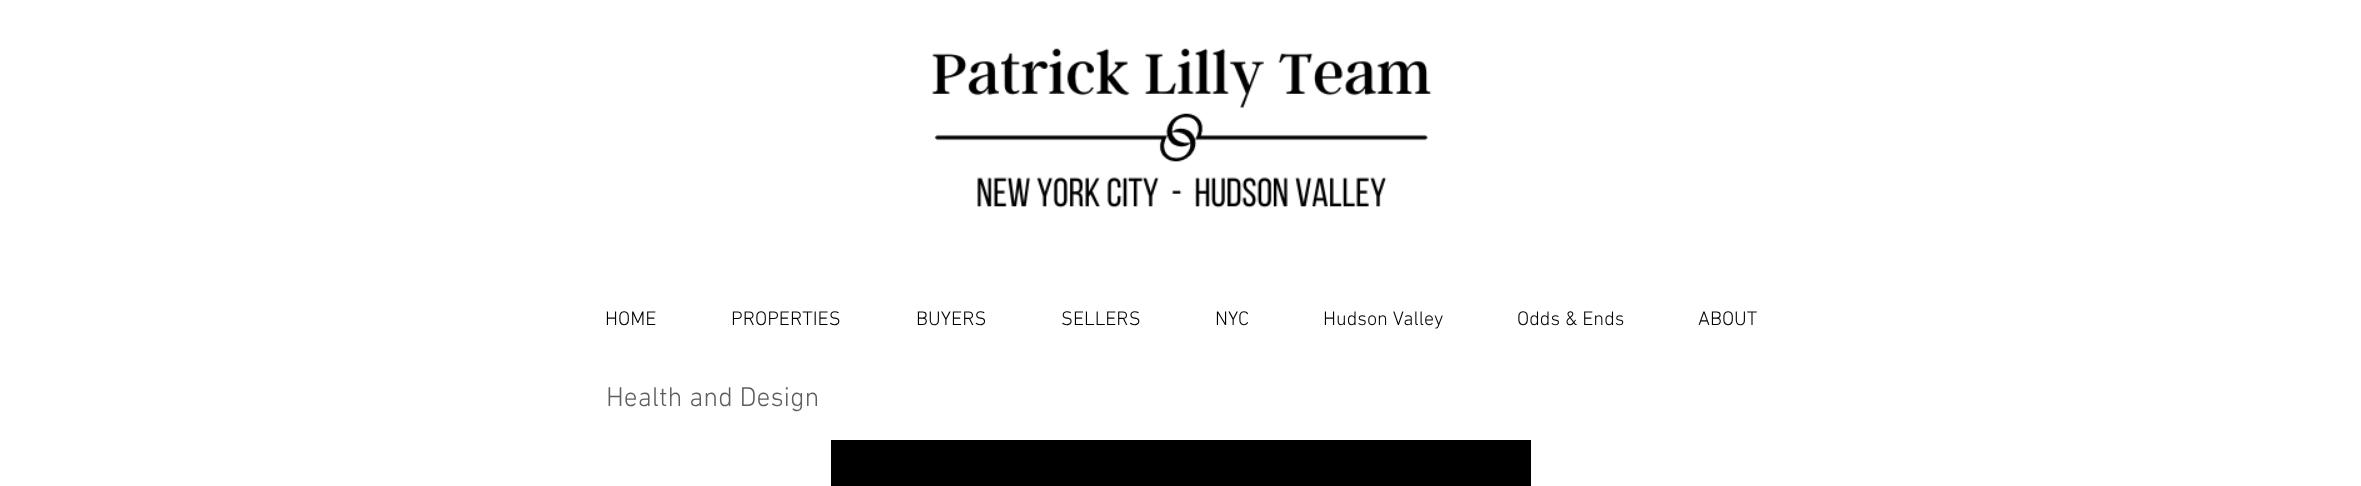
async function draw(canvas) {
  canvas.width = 2361;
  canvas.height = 486;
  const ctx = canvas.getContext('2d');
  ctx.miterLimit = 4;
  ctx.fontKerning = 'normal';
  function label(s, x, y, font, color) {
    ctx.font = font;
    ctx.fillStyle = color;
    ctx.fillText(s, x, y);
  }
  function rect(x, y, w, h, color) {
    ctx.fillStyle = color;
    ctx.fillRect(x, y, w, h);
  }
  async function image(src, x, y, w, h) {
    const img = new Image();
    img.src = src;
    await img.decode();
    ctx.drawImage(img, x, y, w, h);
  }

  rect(0, 0, 2361, 486, '#fff');
  await image('assets/img1.png', 932, 48, 500, 160);
  label('HOME', 605, 325, '300 20px "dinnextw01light"', '#000');
  label('PROPERTIES', 731, 325, '300 20px "dinnextw01light"', '#000');
  label('BUYERS', 916, 325, '300 20px "dinnextw01light"', '#000');
  label('SELLERS', 1061, 325, '300 20px "dinnextw01light"', '#000');
  label('NYC', 1215, 325, '300 20px "dinnextw01light"', '#000');
  label('Hudson Valley', 1323, 325, '300 20px "dinnextw01light"', '#000');
  label('Odds & Ends', 1517, 325, '300 20px "dinnextw01light"', '#000');
  label('ABOUT', 1698, 325, '300 20px "dinnextw01light"', '#000');
  label('Health and Design', 606, 406, '300 27.5px "dinnextw01light"', '#605e5e');
  rect(831, 440, 700, 46, '#000');
}

draw(document.querySelector('canvas'));
